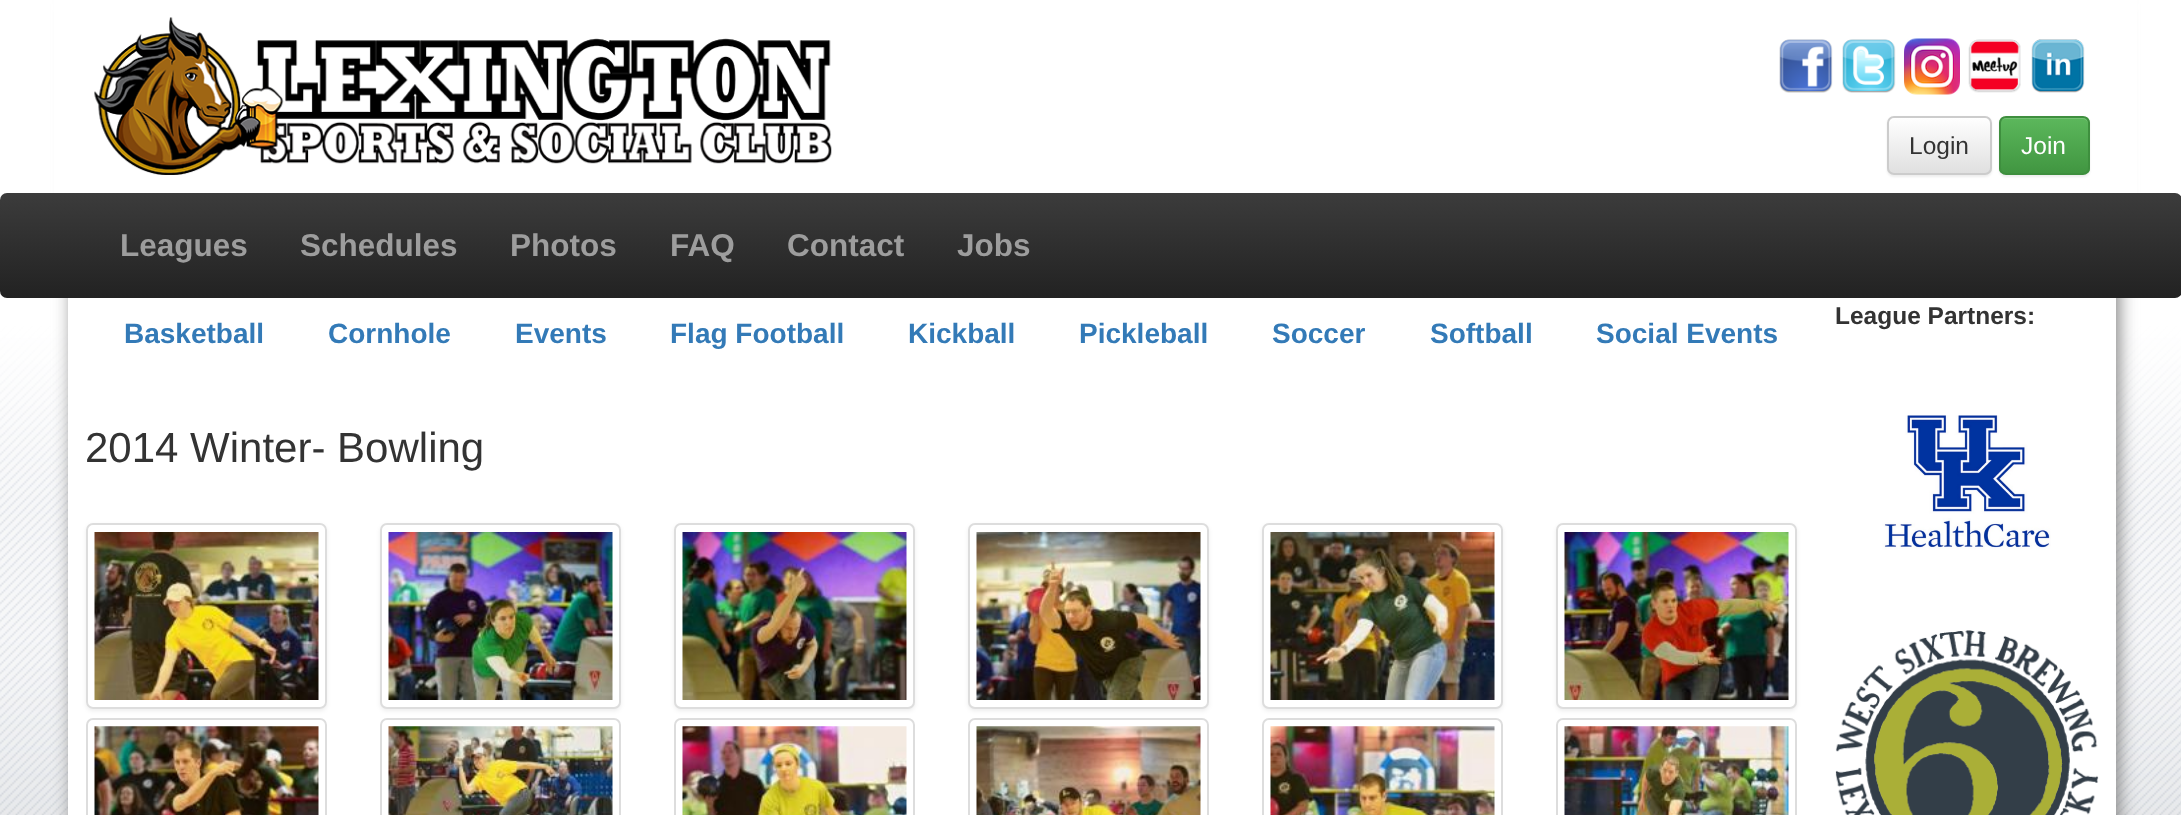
async function draw(canvas) {
  canvas.width = 2181;
  canvas.height = 815;
  const ctx = canvas.getContext('2d');
  ctx.miterLimit = 4;
  ctx.fontKerning = 'normal';
  function label(s, x, y, font, color) {
    ctx.font = font;
    ctx.fillStyle = color;
    ctx.fillText(s, x, y);
  }
  function rect(x, y, w, h, color) {
    ctx.fillStyle = color;
    ctx.fillRect(x, y, w, h);
  }
  async function image(src, x, y, w, h) {
    const img = new Image();
    img.src = src;
    await img.decode();
    ctx.drawImage(img, x, y, w, h);
  }
  let gradient, path;

  rect(0, 0, 2181, 815, '#fff');
  await image('assets/img1.png', 0, 193, 2181, 622);
  ctx.fillStyle = '#808080';
  ctx.filter = 'blur(9px)';
  ctx.beginPath();
  ctx.rect(72, 4, 2047, 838);
  ctx.fill();
  ctx.filter = 'none';
  rect(54, 0, 2083, 193, '#fff');
  await image('assets/img2.png', 94, 17, 738, 158);
  await image('assets/img3.png', 1779, 39, 54, 54);
  await image('assets/img4.png', 1842, 39, 54, 54);
  await image('assets/img5.png', 1904, 38, 56, 57);
  await image('assets/img6.png', 1968, 39, 53, 54);
  await image('assets/img7.png', 2031, 39, 54, 54);
  ctx.fillStyle = '#00000012';
  ctx.filter = 'blur(1px)';
  ctx.beginPath();
  ctx.roundRect(1887, 117, 105, 60, 7);
  ctx.fill();
  ctx.filter = 'none';
  ctx.save();
  ctx.beginPath();
  ctx.roundRect(1887, 116, 105, 59, 7);
  ctx.clip();
  gradient = ctx.createLinearGradient(1939, 117, 1939, 173);
  gradient.addColorStop(0, '#fff');
  gradient.addColorStop(1, '#e0e0e0');
  ctx.fillStyle = gradient;
  ctx.fillRect(1887, 117, 105, 56);
  ctx.restore();
  ctx.beginPath();
  ctx.roundRect(1888, 117, 103, 57, 6);
  ctx.strokeStyle = '#ccc';
  ctx.lineWidth = 2;
  ctx.stroke();
  label('Login', 1909, 154, '24.5px Liberation Sans', '#333');
  ctx.fillStyle = '#00000012';
  ctx.filter = 'blur(1px)';
  ctx.beginPath();
  ctx.roundRect(1999, 117, 91, 60, 7);
  ctx.fill();
  ctx.filter = 'none';
  ctx.save();
  ctx.beginPath();
  ctx.roundRect(1999, 116, 91, 59, 7);
  ctx.clip();
  gradient = ctx.createLinearGradient(2044, 117, 2044, 173);
  gradient.addColorStop(0, '#5cb85c');
  gradient.addColorStop(1, '#419641');
  ctx.fillStyle = gradient;
  ctx.fillRect(1999, 117, 91, 56);
  ctx.restore();
  ctx.fillStyle = '#ffffff26';
  path = new Path2D('M2006 119H2082C2085 119 2088 121 2088 124C2088 114 2078 117 2070 117H2018C2010 117 2000 114 2000 124C2000 121 2003 119 2006 119Z');
  ctx.fill(path);
  ctx.beginPath();
  ctx.roundRect(2000, 117, 89, 57, 6);
  ctx.strokeStyle = '#3e8f3e';
  ctx.stroke();
  label('Join', 2021, 154, '24.5px Liberation Sans', '#fff');
  gradient = ctx.createLinearGradient(1091, 192, 1091, 298);
  gradient.addColorStop(0, '#3c3c3c');
  gradient.addColorStop(1, '#222');
  ctx.fillStyle = gradient;
  ctx.beginPath();
  ctx.roundRect(0, 193, 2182, 105, 7);
  ctx.fill();
  label('Leagues', 120, 256, 'bold 31.5px Liberation Sans', '#9d9d9d');
  label('Schedules', 300, 256, 'bold 31.5px Liberation Sans', '#9d9d9d');
  label('Photos', 510, 256, 'bold 31.5px Liberation Sans', '#9d9d9d');
  label('FAQ', 670, 256, 'bold 31.5px Liberation Sans', '#9d9d9d');
  label('Contact', 787, 256, 'bold 31.5px Liberation Sans', '#9d9d9d');
  label('Jobs', 957, 256, 'bold 31.5px Liberation Sans', '#9d9d9d');
  rect(68, 298, 2048, 517, '#fff');
  label('League Partners:', 1835, 324, 'bold 24.5px Liberation Sans', '#333');
  await image('assets/img8.png', 1882, 415, 169, 135);
  await image('assets/img9.png', 1835, 630, 264, 185);
  label('Basketball', 124, 343, 'bold 28px Liberation Sans', '#337ab7');
  label('Cornhole', 328, 343, 'bold 28px Liberation Sans', '#337ab7');
  label('Events', 515, 343, 'bold 28px Liberation Sans', '#337ab7');
  label('Flag Football', 670, 343, 'bold 28px Liberation Sans', '#337ab7');
  label('Kickball', 908, 343, 'bold 28px Liberation Sans', '#337ab7');
  label('Pickleball', 1079, 343, 'bold 28px Liberation Sans', '#337ab7');
  label('Soccer', 1272, 343, 'bold 28px Liberation Sans', '#337ab7');
  label('Softball', 1430, 343, 'bold 28px Liberation Sans', '#337ab7');
  label('Social Events', 1596, 343, 'bold 28px Liberation Sans', '#337ab7');
  label('2014 Winter- Bowling', 85, 462, '42px Liberation Sans', '#333');
  ctx.save();
  path = new Path2D('M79 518H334V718H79ZM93 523H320C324 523 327 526 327 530V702C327 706 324 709 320 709H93C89 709 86 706 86 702V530C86 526 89 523 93 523Z');
  ctx.clip(path, 'evenodd');
  ctx.fillStyle = '#00000012';
  ctx.filter = 'blur(2px)';
  ctx.beginPath();
  ctx.roundRect(86, 525, 241, 186, 7);
  ctx.fill();
  ctx.filter = 'none';
  ctx.restore();
  ctx.fillStyle = '#fff';
  ctx.beginPath();
  ctx.roundRect(87, 524, 239, 184, 6);
  ctx.fill();
  ctx.strokeStyle = '#ddd';
  ctx.stroke();
  await image('assets/img10.png', 94, 532, 225, 168);
  ctx.fillStyle = '#00000012';
  ctx.filter = 'blur(2px)';
  ctx.beginPath();
  ctx.roundRect(380, 525, 241, 186, 7);
  ctx.fill();
  ctx.filter = 'none';
  ctx.fillStyle = '#fff';
  ctx.beginPath();
  ctx.roundRect(381, 524, 239, 184, 6);
  ctx.fill();
  ctx.stroke();
  await image('assets/img11.png', 388, 532, 225, 168);
  ctx.fillStyle = '#00000012';
  ctx.filter = 'blur(2px)';
  ctx.beginPath();
  ctx.roundRect(674, 525, 241, 186, 7);
  ctx.fill();
  ctx.filter = 'none';
  ctx.fillStyle = '#fff';
  ctx.beginPath();
  ctx.roundRect(675, 524, 239, 184, 6);
  ctx.fill();
  ctx.stroke();
  await image('assets/img12.png', 682, 532, 225, 168);
  ctx.fillStyle = '#00000012';
  ctx.filter = 'blur(2px)';
  ctx.beginPath();
  ctx.roundRect(968, 525, 241, 186, 7);
  ctx.fill();
  ctx.filter = 'none';
  ctx.fillStyle = '#fff';
  ctx.beginPath();
  ctx.roundRect(969, 524, 239, 184, 6);
  ctx.fill();
  ctx.stroke();
  await image('assets/img13.png', 976, 532, 225, 168);
  ctx.fillStyle = '#00000012';
  ctx.filter = 'blur(2px)';
  ctx.beginPath();
  ctx.roundRect(1262, 525, 241, 186, 7);
  ctx.fill();
  ctx.filter = 'none';
  ctx.fillStyle = '#fff';
  ctx.beginPath();
  ctx.roundRect(1263, 524, 239, 184, 6);
  ctx.fill();
  ctx.stroke();
  await image('assets/img14.png', 1270, 532, 225, 168);
  ctx.fillStyle = '#00000012';
  ctx.filter = 'blur(2px)';
  ctx.beginPath();
  ctx.roundRect(1556, 525, 241, 186, 7);
  ctx.fill();
  ctx.filter = 'none';
  ctx.fillStyle = '#fff';
  ctx.beginPath();
  ctx.roundRect(1557, 524, 239, 184, 6);
  ctx.fill();
  ctx.stroke();
  await image('assets/img15.png', 1564, 532, 225, 168);
  ctx.beginPath();
  ctx.roundRect(87, 719, 239, 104, 6);
  ctx.stroke();
  await image('assets/img16.png', 94, 726, 225, 89);
  ctx.beginPath();
  ctx.roundRect(381, 719, 239, 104, 6);
  ctx.stroke();
  await image('assets/img17.png', 388, 726, 225, 89);
  ctx.beginPath();
  ctx.roundRect(675, 719, 239, 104, 6);
  ctx.stroke();
  await image('assets/img18.png', 682, 726, 225, 89);
  ctx.beginPath();
  ctx.roundRect(969, 719, 239, 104, 6);
  ctx.stroke();
  await image('assets/img19.png', 976, 726, 225, 89);
  ctx.beginPath();
  ctx.roundRect(1263, 719, 239, 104, 6);
  ctx.stroke();
  await image('assets/img20.png', 1270, 726, 225, 89);
  ctx.beginPath();
  ctx.roundRect(1557, 719, 239, 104, 6);
  ctx.stroke();
  await image('assets/img21.png', 1564, 726, 225, 89);
}

draw(document.querySelector('canvas'));
